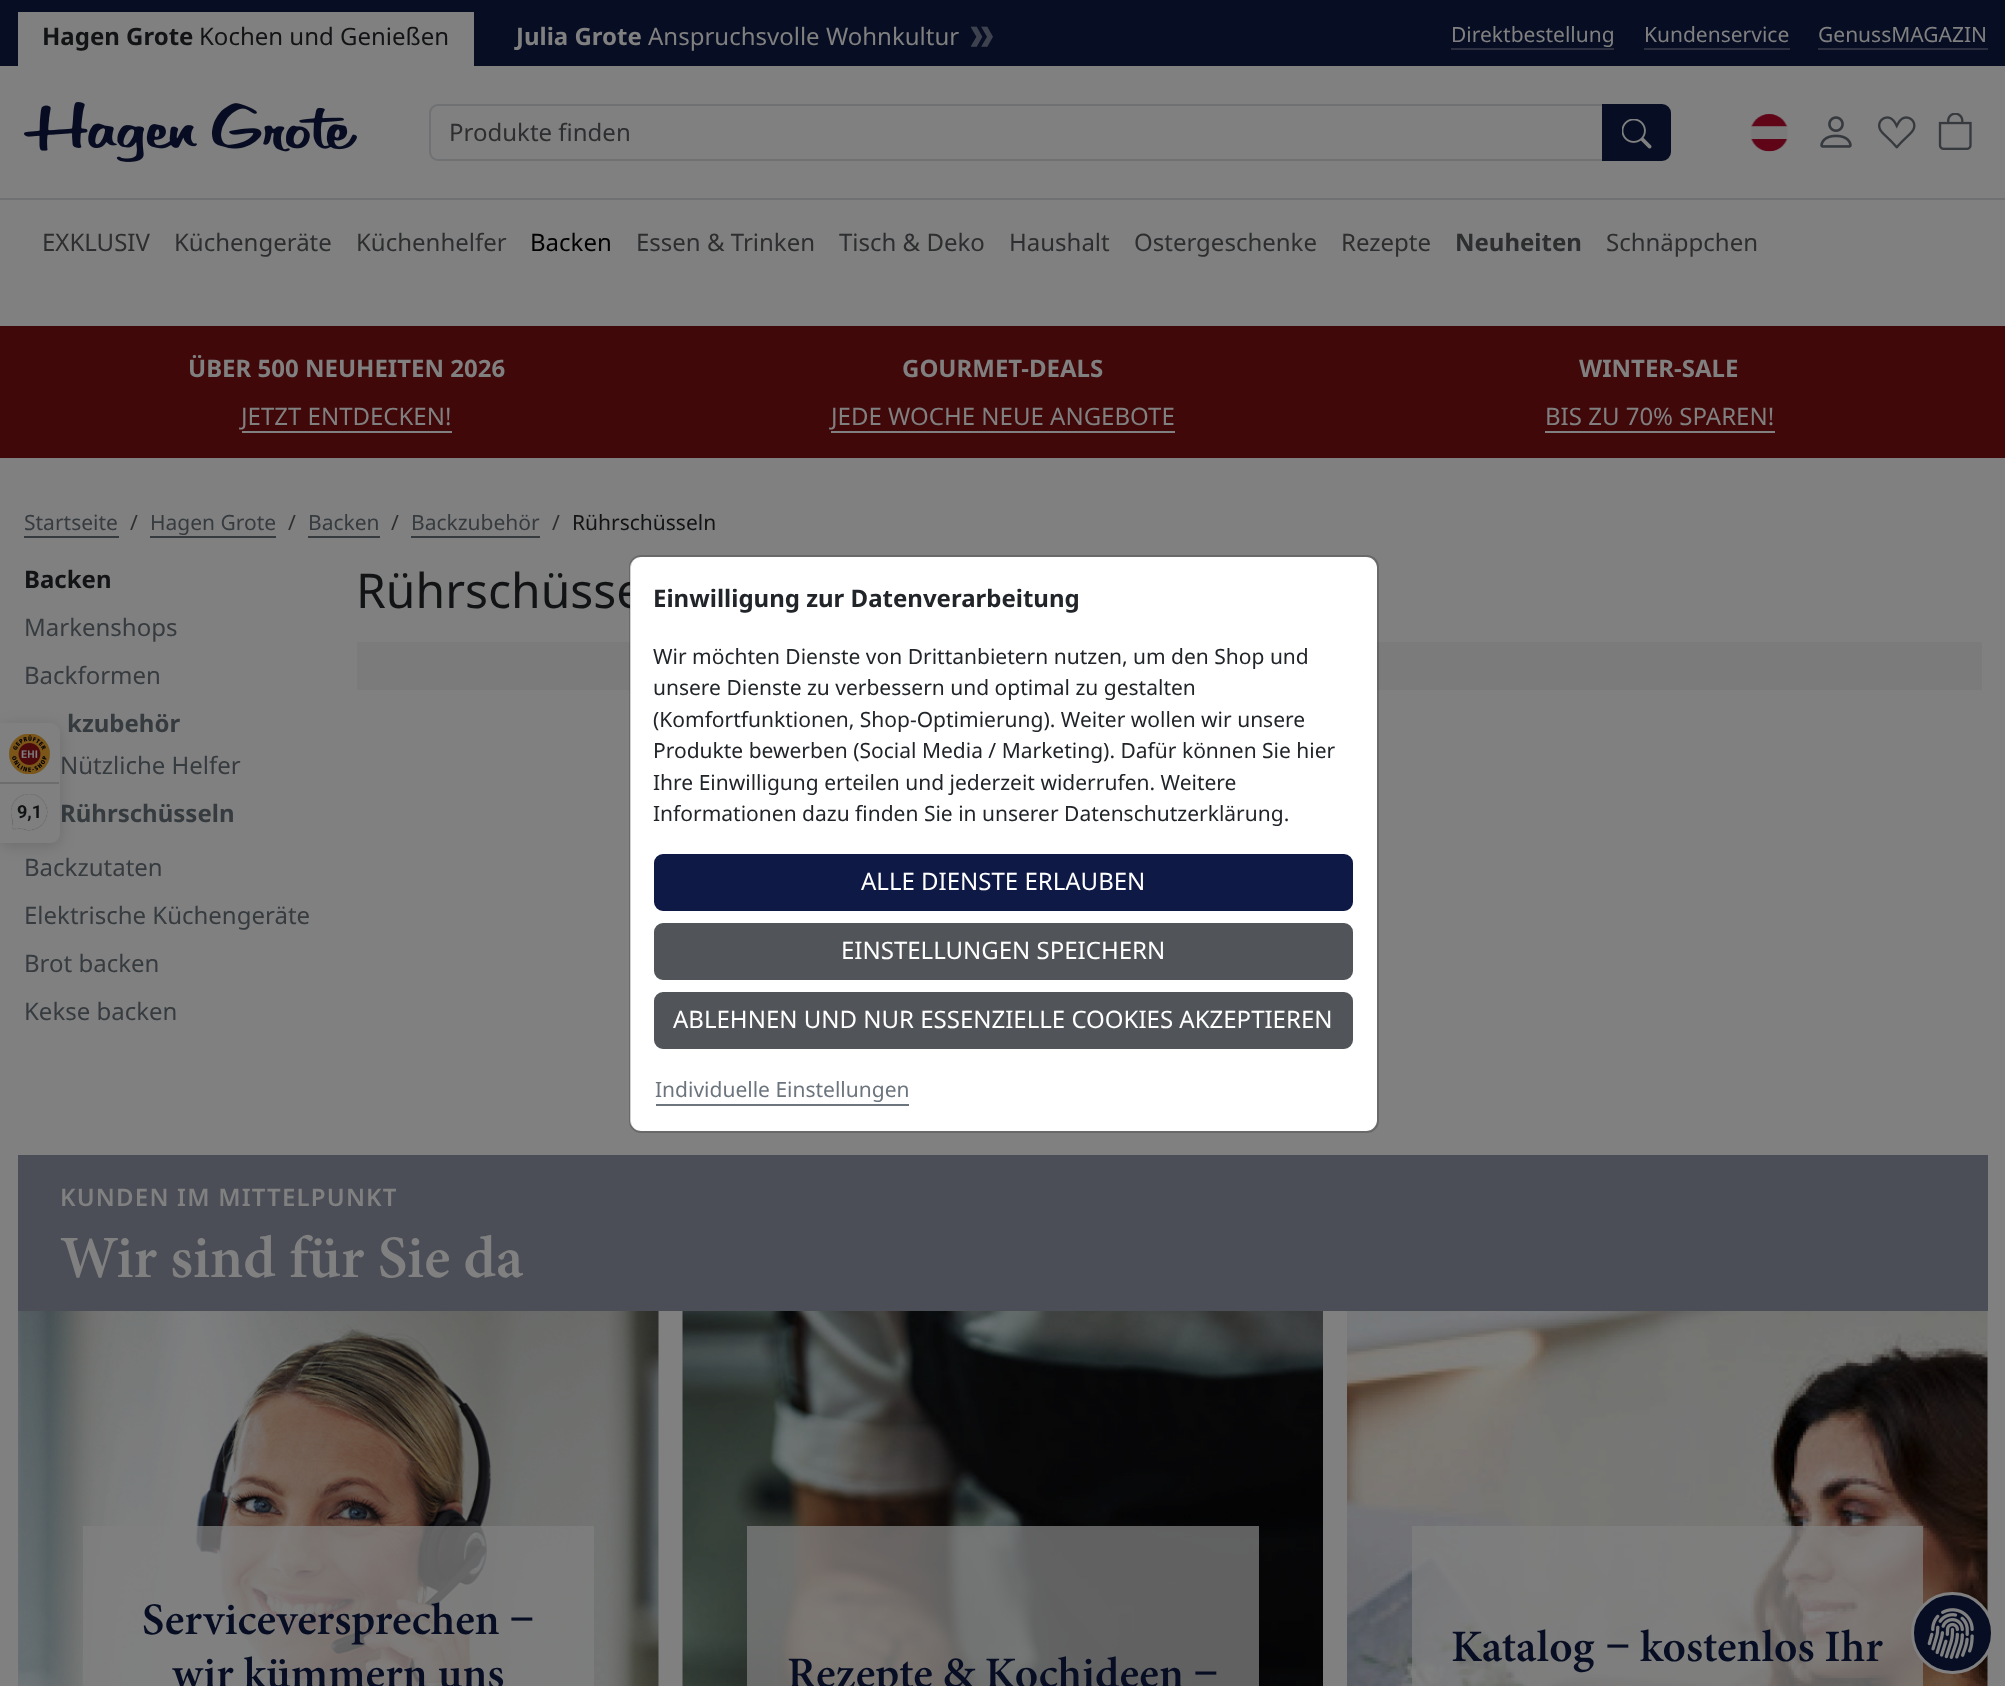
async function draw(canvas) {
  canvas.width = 2005;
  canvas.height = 1686;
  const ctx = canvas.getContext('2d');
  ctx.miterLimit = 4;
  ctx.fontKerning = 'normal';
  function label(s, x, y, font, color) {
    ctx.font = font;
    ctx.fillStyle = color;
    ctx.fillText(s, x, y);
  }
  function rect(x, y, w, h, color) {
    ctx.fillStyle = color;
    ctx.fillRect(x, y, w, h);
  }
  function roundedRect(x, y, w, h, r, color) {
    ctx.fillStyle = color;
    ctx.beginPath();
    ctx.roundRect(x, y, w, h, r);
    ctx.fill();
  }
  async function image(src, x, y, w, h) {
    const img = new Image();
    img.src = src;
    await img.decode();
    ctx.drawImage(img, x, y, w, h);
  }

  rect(0, 0, 2005, 1686, '#808080');
  rect(0, 0, 2005, 66, '#070d23');
  rect(18, 12, 456, 54, '#808080');
  label('Hagen Grote', 42, 45, 'bold 24px Noto Sans', '#111315');
  label('Kochen und Genießen', 199, 45, '24px Noto Sans', '#111315');
  label('Julia Grote', 516, 45, 'bold 24px Noto Sans', '#808080');
  label('Anspruchsvolle Wohnkultur', 648, 45, '24px Noto Sans', '#808080');
  await image('assets/img1.png', 971, 26, 22, 21);
  label('Direktbestellung', 1451, 42, '21px Noto Sans', '#808080');
  rect(1451, 48, 163, 2, '#2b2f3f');
  label('Kundenservice', 1644, 42, '21px Noto Sans', '#808080');
  rect(1644, 48, 146, 2, '#2b2f3f');
  label('GenussMAGAZIN', 1818, 42, '21px Noto Sans', '#808080');
  rect(1818, 48, 170, 2, '#2b2f3f');
  await image('assets/img2.png', 24, 102, 333, 60);
  ctx.beginPath();
  ctx.roundRect(430, 105, 1173, 55, [8, 0, 0, 8]);
  ctx.strokeStyle = '#6f7173';
  ctx.lineWidth = 2;
  ctx.stroke();
  label('Produkte finden', 449, 141, '24px Noto Sans', '#2d2e30');
  ctx.fillStyle = '#070d23';
  ctx.beginPath();
  ctx.roundRect(1603, 105, 67, 55, [0, 8, 8, 0]);
  ctx.fill();
  ctx.strokeStyle = '#070d23';
  ctx.stroke();
  await image('assets/img3.png', 1622, 119, 30, 30);
  await image('assets/img4.png', 1750, 114, 38, 38);
  await image('assets/img5.png', 1820, 116, 32, 32);
  await image('assets/img6.png', 1878, 116, 38, 33);
  await image('assets/img7.png', 1938, 113, 34, 37);
  rect(0, 198, 2005, 2, '#6f7173');
  label('EXKLUSIV', 42, 251, '24px Noto Sans', '#2d2e30');
  label('Küchengeräte', 174, 251, '24px Noto Sans', '#2d2e30');
  label('Küchenhelfer', 356, 251, '24px Noto Sans', '#2d2e30');
  label('Backen', 530, 251, '24px Noto Sans', '#000');
  label('Essen & Trinken', 636, 251, '24px Noto Sans', '#2d2e30');
  label('Tisch & Deko', 839, 251, '24px Noto Sans', '#2d2e30');
  label('Haushalt', 1009, 251, '24px Noto Sans', '#2d2e30');
  label('Ostergeschenke', 1134, 251, '24px Noto Sans', '#2d2e30');
  label('Rezepte', 1341, 251, '24px Noto Sans', '#2d2e30');
  label('Neuheiten', 1455, 251, 'bold 24px Noto Sans', '#2d2e30');
  label('Schnäppchen', 1606, 251, '24px Noto Sans', '#2d2e30');
  rect(0, 326, 2005, 132, '#41080a');
  label('ÜBER 500 NEUHEITEN 2026', 188, 377, 'bold 24px Noto Sans', '#808080');
  label('JETZT ENTDECKEN!', 241, 425, '24px Noto Sans', '#808080');
  rect(242, 431, 210, 2, '#808080');
  label('GOURMET-DEALS', 902, 377, 'bold 24px Noto Sans', '#808080');
  label('JEDE WOCHE NEUE ANGEBOTE', 831, 425, '24px Noto Sans', '#808080');
  rect(831, 431, 344, 2, '#808080');
  label('WINTER-SALE', 1579, 377, 'bold 24px Noto Sans', '#808080');
  label('BIS ZU 70% SPAREN!', 1545, 425, '24px Noto Sans', '#808080');
  rect(1545, 431, 230, 2, '#808080');
  label('Startseite', 24, 530, '21px Noto Sans', '#363b3f');
  rect(24, 536, 95, 2, '#363b3f');
  label('/', 130, 530, '21px Noto Sans', '#2d2e30');
  label('Hagen Grote', 150, 530, '21px Noto Sans', '#363b3f');
  rect(150, 536, 126, 2, '#363b3f');
  label('/', 288, 530, '21px Noto Sans', '#2d2e30');
  label('Backen', 308, 530, '21px Noto Sans', '#363b3f');
  rect(308, 536, 72, 2, '#363b3f');
  label('/', 391, 530, '21px Noto Sans', '#2d2e30');
  label('Backzubehör', 411, 530, '21px Noto Sans', '#363b3f');
  rect(411, 536, 129, 2, '#363b3f');
  label('/', 552, 530, '21px Noto Sans', '#2d2e30');
  label('Rührschüsseln', 572, 530, '21px Noto Sans', '#111315');
  label('Backen', 24, 588, 'bold 24px Noto Sans', '#111315');
  label('Markenshops', 24, 636, '24px Noto Sans', '#363b3f');
  label('Backformen', 24, 684, '24px Noto Sans', '#363b3f');
  label('kzubehör', 67, 732, 'bold 24px Noto Sans', '#363b3f');
  label('Nützliche Helfer', 60, 774, '24px Noto Sans', '#363b3f');
  label('Rührschüsseln', 60, 822, 'bold 24px Noto Sans', '#363b3f');
  label('Backzutaten', 24, 876, '24px Noto Sans', '#363b3f');
  label('Elektrische Küchengeräte', 24, 924, '24px Noto Sans', '#363b3f');
  label('Brot backen', 24, 972, '24px Noto Sans', '#363b3f');
  label('Kekse backen', 24, 1020, '24px Noto Sans', '#363b3f');
  label('Rührschüsse', 356, 608, '48px Noto Sans', '#111315');
  rect(357, 642, 1625, 48, '#7b7b7b');
  roundedRect(630, 557, 747, 574, 11, '#fff');
  ctx.beginPath();
  ctx.roundRect(630, 556, 748, 576, 11);
  ctx.strokeStyle = '#0000002e';
  ctx.stroke();
  label('Einwilligung zur Datenverarbeitung', 653, 607, 'bold 24px Noto Sans', '#212529');
  label('Wir möchten Dienste von Drittanbietern nutzen, um den Shop und', 653, 664, '21px Noto Sans', '#212529');
  label('unsere Dienste zu verbessern und optimal zu gestalten', 653, 695, '21px Noto Sans', '#212529');
  label('(Komfortfunktionen, Shop-Optimierung). Weiter wollen wir unsere', 653, 727, '21px Noto Sans', '#212529');
  label('Produkte bewerben (Social Media / Marketing). Dafür können Sie hier', 653, 758, '21px Noto Sans', '#212529');
  label('Ihre Einwilligung erteilen und jederzeit widerrufen. Weitere', 653, 790, '21px Noto Sans', '#212529');
  label('Informationen dazu finden Sie in unserer Datenschutzerklärung.', 653, 821, '21px Noto Sans', '#212529');
  ctx.fillStyle = '#0e1945';
  ctx.beginPath();
  ctx.roundRect(655, 855, 697, 55, 8);
  ctx.fill();
  ctx.strokeStyle = '#0e1945';
  ctx.stroke();
  label('ALLE DIENSTE ERLAUBEN', 861, 890, '24px Noto Sans', '#fff');
  ctx.fillStyle = '#515559';
  ctx.beginPath();
  ctx.roundRect(655, 924, 697, 55, 8);
  ctx.fill();
  ctx.strokeStyle = '#515559';
  ctx.stroke();
  label('EINSTELLUNGEN SPEICHERN', 841, 959, '24px Noto Sans', '#fff');
  ctx.fillStyle = '#515559';
  ctx.beginPath();
  ctx.roundRect(655, 993, 697, 55, 8);
  ctx.fill();
  ctx.stroke();
  label('ABLEHNEN UND NUR ESSENZIELLE COOKIES AKZEPTIEREN', 673, 1028, '24px Noto Sans', '#fff');
  label('Individuelle Einstellungen', 655, 1097, '21px Noto Sans', '#6c757d');
  rect(656, 1104, 253, 2, '#6c757d');
  ctx.fillStyle = '#00000026';
  ctx.filter = 'blur(7.5px)';
  ctx.beginPath();
  ctx.roundRect(0, 726, 60, 120, 9);
  ctx.fill();
  ctx.filter = 'none';
  ctx.fillStyle = '#808080';
  ctx.beginPath();
  ctx.roundRect(0, 723, 60, 120, [0, 9, 9, 0]);
  ctx.fill();
  await image('assets/img8.png', 9, 734, 41, 40);
  rect(0, 782, 59, 2, '#6d6d6d');
  await image('assets/img9.png', 11, 794, 37, 37);
  label('9,1', 17, 818, 'bold 18px Roboto', '#111315');
  rect(18, 1155, 1970, 156, '#4b4e57');
  ctx.letterSpacing = '1.2px';
  label('KUNDEN IM MITTELPUNKT', 60, 1206, '600 24px Noto Sans', '#808080');
  ctx.letterSpacing = '0px';
  label('Wir sind für Sie da', 60, 1277, '600 60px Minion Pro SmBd', '#808080');
  await image('assets/img10.png', 18, 1311, 641, 375);
  rect(83, 1526, 511, 160, '#808080bf');
  label('Serviceversprechen', 142, 1634, '600 45px Minion Pro SmBd', '#070d23');
  label('−', 509, 1634, 'bold 45px Liberation Serif', '#070d23');
  label('wir kümmern uns', 172, 1688, '600 45px Minion Pro SmBd', '#070d23');
  await image('assets/img11.png', 682, 1311, 641, 375);
  rect(747, 1526, 512, 160, '#808080bf');
  label('Rezepte & Kochideen', 787, 1688, '600 45px Minion Pro SmBd', '#070d23');
  label('−', 1193, 1688, 'bold 45px Liberation Serif', '#070d23');
  await image('assets/img12.png', 1347, 1311, 641, 375);
  rect(1412, 1526, 511, 160, '#808080bf');
  label('Katalog', 1451, 1661, '600 45px Minion Pro SmBd', '#070d23');
  label('−', 1605, 1661, 'bold 45px Liberation Serif', '#070d23');
  label('kostenlos Ihr', 1640, 1661, '600 45px Minion Pro SmBd', '#070d23');
  ctx.beginPath();
  ctx.roundRect(1912.5, 1593.5, 80, 79, 39.5);
  ctx.fill();
  ctx.strokeStyle = '#808080';
  ctx.lineWidth = 3;
  ctx.stroke();
  await image('assets/img13.png', 1927, 1608, 47, 51);
}

draw(document.querySelector('canvas'));
